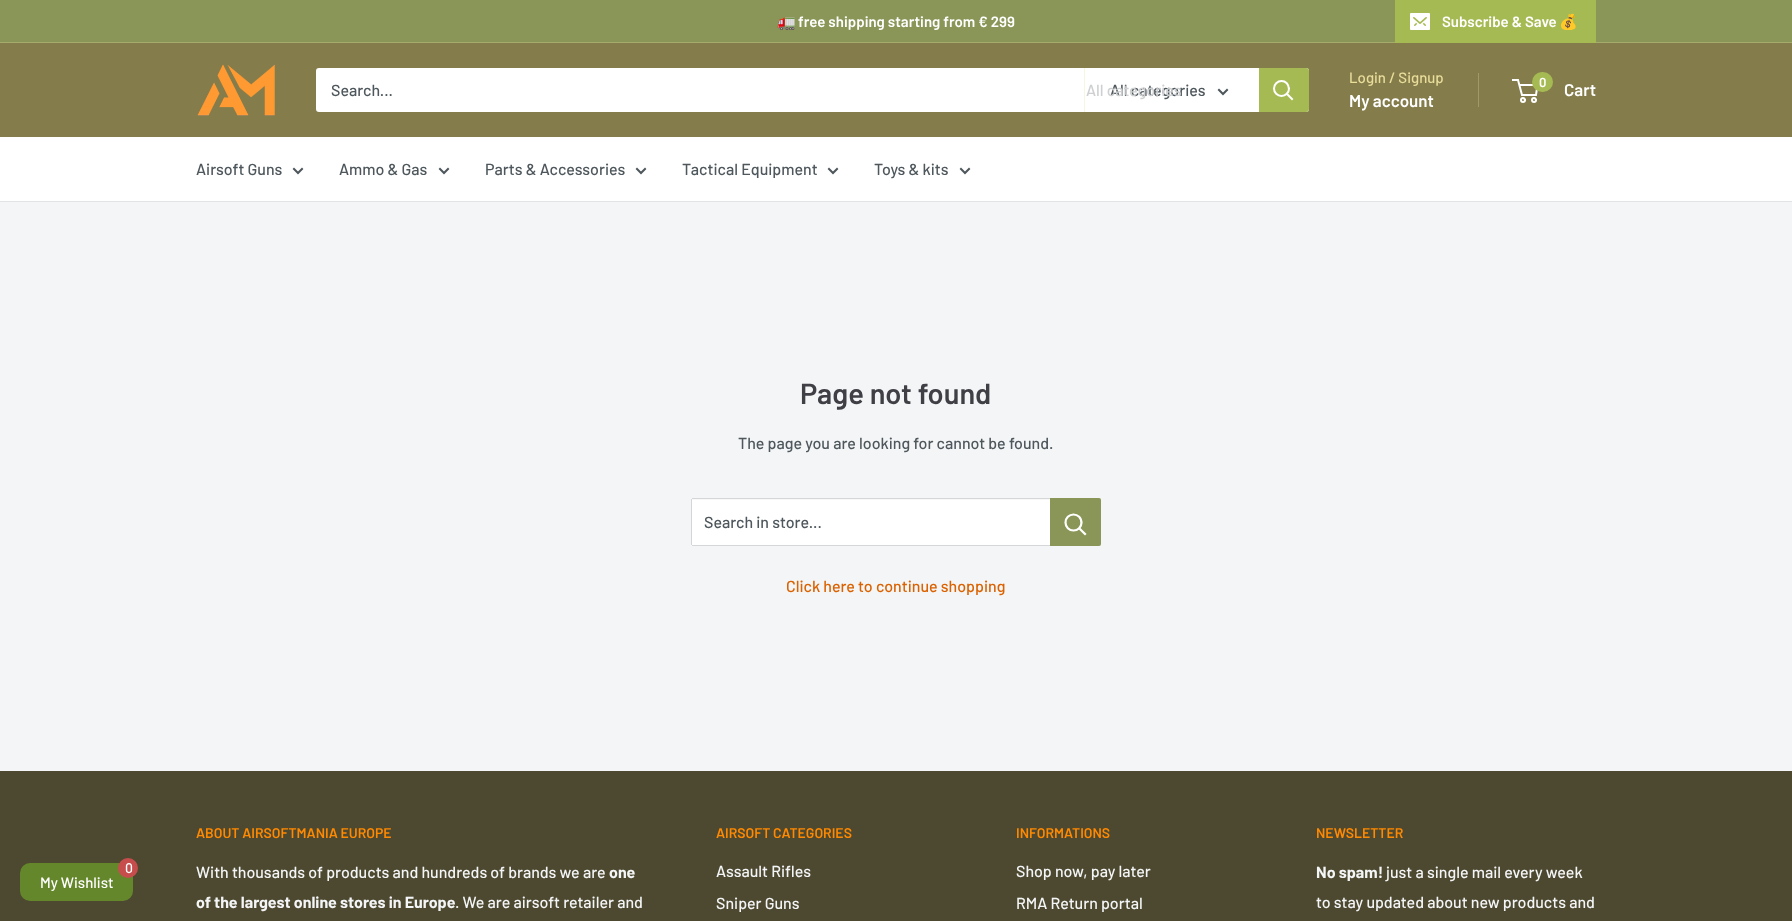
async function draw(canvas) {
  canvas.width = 1792;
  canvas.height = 921;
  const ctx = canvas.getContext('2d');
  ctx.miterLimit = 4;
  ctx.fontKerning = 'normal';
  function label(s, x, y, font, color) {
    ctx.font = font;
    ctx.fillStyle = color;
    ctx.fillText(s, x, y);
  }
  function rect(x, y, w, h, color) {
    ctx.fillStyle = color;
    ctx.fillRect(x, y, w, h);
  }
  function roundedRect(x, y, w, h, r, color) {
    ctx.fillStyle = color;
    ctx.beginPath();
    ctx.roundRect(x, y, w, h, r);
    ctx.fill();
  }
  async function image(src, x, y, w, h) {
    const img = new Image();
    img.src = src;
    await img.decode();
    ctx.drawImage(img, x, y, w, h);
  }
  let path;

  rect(0, 0, 1792, 921, '#f3f5f6');
  rect(0, 0, 1792, 42, '#899657');
  rect(0, 42, 1792, 1, '#a6ab6c');
  label('🚛', 777, 27, 'bold 15px Noto Color Emoji', '#fff');
  label('free shipping starting from € 299', 798, 27, '600 15px Barlow', '#fff');
  rect(1395, 0, 201, 43, '#a5ba53');
  await image('assets/img1.png', 1410, 13, 20, 17);
  label('Subscribe & Save', 1442, 27, '600 15px Barlow', '#fff');
  label('💰', 1559, 27, 'bold 15px Noto Color Emoji', '#fff');
  rect(0, 43, 1792, 94, '#847c4a');
  await image('assets/img2.png', 197, 64, 78, 52);
  roundedRect(316, 68, 993, 44, 3, '#fff');
  label('Search...', 331, 96, '500 16px Barlow', '#4e575c');
  rect(1084, 68, 1, 44, '#f8f5e1');
  label('All categories', 1110, 96, '500 16px Barlow', '#4e575c');
  label('All categories', 1086, 96, '500 16px Barlow', '#cdcfd1');
  path = new Path2D('M1227 90L1223 94L1219 90');
  ctx.strokeStyle = '#4e575c';
  ctx.lineWidth = 2;
  ctx.lineCap = 'square';
  ctx.stroke(path);
  ctx.fillStyle = '#a5ba53';
  ctx.beginPath();
  ctx.roundRect(1259, 68, 50, 44, [0, 3, 3, 0]);
  ctx.fill();
  path = new Path2D('M1292 99L1287 94');
  ctx.strokeStyle = '#fff';
  ctx.stroke(path);
  ctx.beginPath();
  ctx.arc(1281.5, 88.5, 7.5, 0, 2 * Math.PI);
  ctx.stroke();
  label('Login / Signup', 1349, 83, '500 15px Barlow', '#e9dd9c');
  rect(1478, 73, 1, 34, '#a29963');
  label('My account', 1349, 107, '600 17px Barlow', '#fff');
  ctx.beginPath();
  ctx.arc(1523, 100, 2, 0, 2 * Math.PI);
  ctx.stroke();
  ctx.beginPath();
  ctx.arc(1534, 100, 2, 0, 2 * Math.PI);
  ctx.stroke();
  path = new Path2D('M1519.5 85H1537.5L1536 95H1522L1518 80H1512');
  ctx.lineCap = 'butt';
  ctx.stroke(path);
  roundedRect(1532, 72, 21, 20, 10, '#a5ba53');
  label('0', 1539, 87, '600 13px Barlow', '#fff');
  label('Cart', 1564, 96, '600 17px Barlow', '#fff');
  rect(0, 137, 1792, 64, '#fff');
  rect(0, 201, 1792, 1, '#e1e3e4');
  label('Airsoft Guns', 196, 175, '500 16px Barlow', '#4e575c');
  path = new Path2D('M302 169L298 173L294 169');
  ctx.strokeStyle = '#4e575c';
  ctx.lineCap = 'square';
  ctx.stroke(path);
  label('Ammo & Gas', 339, 175, '500 16px Barlow', '#4e575c');
  path = new Path2D('M448 169L444 173L440 169');
  ctx.stroke(path);
  label('Parts & Accessories', 485, 175, '500 16px Barlow', '#4e575c');
  path = new Path2D('M645 169L641 173L637 169');
  ctx.stroke(path);
  label('Tactical Equipment', 682, 175, '500 16px Barlow', '#4e575c');
  path = new Path2D('M837 169L833 173L829 169');
  ctx.stroke(path);
  label('Toys & kits', 874, 175, '500 16px Barlow', '#4e575c');
  path = new Path2D('M969 169L965 173L961 169');
  ctx.stroke(path);
  label('Page not found', 800, 404, '600 29px Barlow', '#3f3f45');
  label('The page you are looking for cannot be found.', 738, 449, '500 16px Barlow', '#4e575c');
  ctx.fillStyle = '#fff';
  ctx.beginPath();
  ctx.roundRect(691, 498, 359, 48, [2, 0, 0, 2]);
  ctx.fill();
  ctx.fillStyle = '#f8f8f8';
  path = new Path2D('M693 500H1050V499H693C692 499 692 500 692 501C692 500 692 500 693 500Z');
  ctx.fill(path);
  rect(692, 498, 358, 1, '#d4d6d8');
  rect(692, 545, 358, 1, '#d4d6d8');
  rect(691, 499, 1, 46, '#d4d6d8');
  label('Search in store...', 704, 528, '500 16px Barlow', '#4e575c');
  ctx.fillStyle = '#899657';
  ctx.beginPath();
  ctx.roundRect(1050, 498, 51, 48, [0, 2, 2, 0]);
  ctx.fill();
  path = new Path2D('M1085 534L1079.5 528.5');
  ctx.strokeStyle = '#fff';
  ctx.lineWidth = 2.2;
  ctx.stroke(path);
  ctx.beginPath();
  ctx.arc(1073.5, 522.5, 8, 0, 2 * Math.PI);
  ctx.stroke();
  label('Click here to continue shopping', 786, 592, '500 16px Barlow', '#db6200');
  rect(0, 771, 1792, 150, '#4d4830');
  roundedRect(20, 863, 113, 38, 10, '#65872b');
  ctx.fillStyle = '#c74d4d';
  ctx.beginPath();
  ctx.arc(128, 868, 10, 0, 2 * Math.PI);
  ctx.fill();
  label('0', 125, 873, '500 14px Barlow', '#fff');
  label('My Wishlist', 40, 888, '500 15px Barlow', '#fff');
  label('ABOUT AIRSOFTMANIA EUROPE', 196, 838, '600 14px Barlow', '#ff8900');
  label('With thousands of products and hundreds of brands we are', 196, 878, '500 16px Barlow', '#f3f5f6');
  label('one', 609, 878, 'bold 16px Barlow', '#f3f5f6');
  label('of the largest online stores in Europe', 196, 908, 'bold 16px Barlow', '#f3f5f6');
  label('. We are airsoft retailer and', 455, 908, '500 16px Barlow', '#f3f5f6');
  label('AIRSOFT CATEGORIES', 716, 838, '600 14px Barlow', '#ff8900');
  label('Assault Rifles', 716, 877, '500 16px Barlow', '#f3f5f6');
  label('Sniper Guns', 716, 909, '500 16px Barlow', '#f3f5f6');
  label('INFORMATIONS', 1016, 838, '600 14px Barlow', '#ff8900');
  label('Shop now, pay later', 1016, 877, '500 16px Barlow', '#f3f5f6');
  label('RMA Return portal', 1016, 909, '500 16px Barlow', '#f3f5f6');
  label('NEWSLETTER', 1316, 838, '600 14px Barlow', '#ff8900');
  label('No spam!', 1316, 878, 'bold 16px Barlow', '#f3f5f6');
  label('just a single mail every week', 1386, 878, '500 16px Barlow', '#f3f5f6');
  label('to stay updated about new products and', 1316, 908, '500 16px Barlow', '#f3f5f6');
}

draw(document.querySelector('canvas'));
